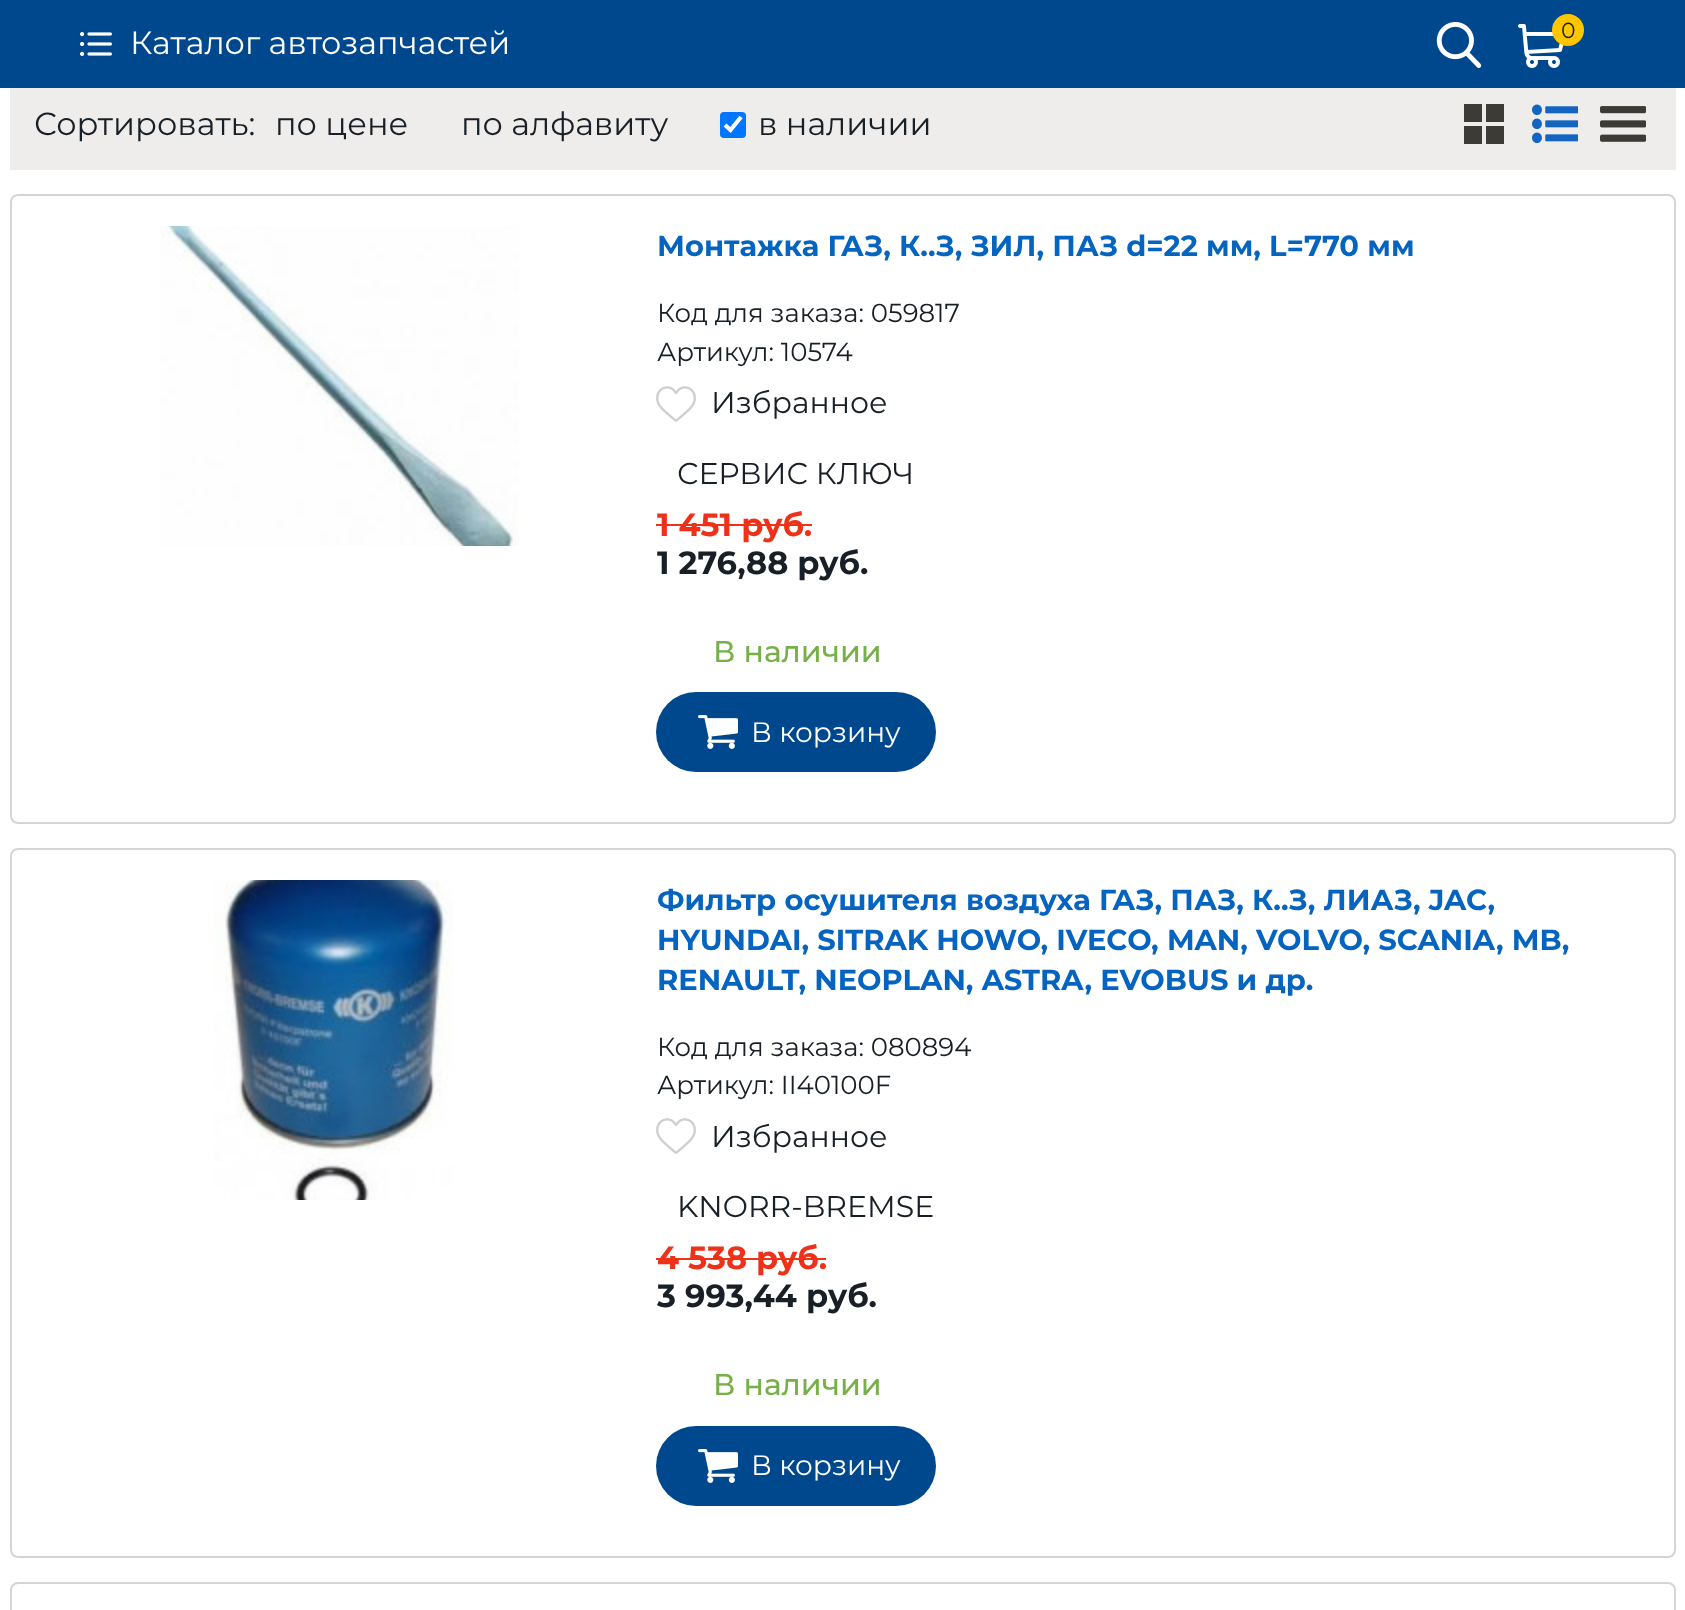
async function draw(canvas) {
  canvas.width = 1685;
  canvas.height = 1610;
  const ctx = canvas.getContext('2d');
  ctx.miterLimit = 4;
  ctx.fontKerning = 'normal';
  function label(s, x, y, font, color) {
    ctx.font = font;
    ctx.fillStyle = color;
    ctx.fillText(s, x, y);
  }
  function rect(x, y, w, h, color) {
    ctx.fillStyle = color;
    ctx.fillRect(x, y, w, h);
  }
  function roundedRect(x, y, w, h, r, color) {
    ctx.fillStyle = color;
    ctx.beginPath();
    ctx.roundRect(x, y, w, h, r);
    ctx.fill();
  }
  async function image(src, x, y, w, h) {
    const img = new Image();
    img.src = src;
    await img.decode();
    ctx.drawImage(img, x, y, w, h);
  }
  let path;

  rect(0, 0, 1685, 1610, '#fff');
  rect(0, 0, 1685, 88, '#00488d');
  await image('assets/img1.png', 80, 32, 32, 24);
  label('Каталог автозапчастей', 130, 54, '32px Montserrat', '#fff');
  await image('assets/img2.png', 1436, 22, 46, 46);
  await image('assets/img3.png', 1518, 24, 46, 44);
  ctx.fillStyle = '#ffc600';
  ctx.beginPath();
  ctx.arc(1568, 30, 16, 0, 2 * Math.PI);
  ctx.fill();
  label('0', 1561, 38, '22px Montserrat', '#181f26');
  rect(10, 88, 1666, 82, '#eeedeb');
  label('Сортировать:', 34, 135, '32px Montserrat', '#181f26');
  label('по цене', 275, 135, '32px Montserrat', '#181f26');
  label('по алфавиту', 461, 135, '32px Montserrat', '#181f26');
  roundedRect(720, 112, 26, 26, 4, '#0075ff');
  path = new Path2D('M725 125L730.5 130L741 117');
  ctx.strokeStyle = '#fff';
  ctx.lineWidth = 4.2;
  ctx.stroke(path);
  label('в наличии', 758, 135, '32px Montserrat', '#181f26');
  rect(1464, 104, 18, 18, '#3c3b36');
  rect(1486, 104, 18, 18, '#3c3b36');
  rect(1464, 126, 18, 18, '#3c3b36');
  rect(1486, 126, 18, 18, '#3c3b36');
  await image('assets/img4.png', 1532, 104, 46, 40);
  await image('assets/img5.png', 1600, 106, 46, 36);
  ctx.beginPath();
  ctx.roundRect(11, 195, 1664, 628, 7);
  ctx.strokeStyle = '#d5d3d3';
  ctx.lineWidth = 2;
  ctx.stroke();
  await image('assets/img6.png', 160, 226, 359, 320);
  label('Монтажка ГАЗ, К..З, ЗИЛ, ПАЗ d=22 мм, L=770 мм', 657, 256, 'bold 29px Montserrat', '#0564c0');
  label('Код для заказа: 059817', 657, 322, '26px Montserrat', '#181f26');
  label('Артикул: 10574', 657, 361, '26px Montserrat', '#181f26');
  await image('assets/img7.png', 656, 386, 40, 36);
  label('Избранное', 711, 413, '30px Montserrat', '#181f26');
  label('СЕРВИС КЛЮЧ', 677, 484, '30px Montserrat', '#181f26');
  label('1 451 руб.', 657, 536, 'bold 32px Montserrat', '#ee321a');
  rect(656, 524, 156, 2, '#ee321a');
  label('1 276,88 руб.', 657, 574, 'bold 32px Montserrat', '#181f26');
  label('В наличии', 713, 662, '500 30px Montserrat', '#77b048');
  roundedRect(656, 692, 280, 80, 40, '#00488d');
  await image('assets/img8.png', 698, 715, 40, 34);
  label('В корзину', 751, 742, '28px Montserrat', '#fff');
  ctx.beginPath();
  ctx.roundRect(11, 849, 1664, 708, 7);
  ctx.stroke();
  await image('assets/img9.png', 213, 880, 241, 320);
  label('Фильтр осушителя воздуха ГАЗ, ПАЗ, К..З, ЛИАЗ, JAC,', 657, 910, 'bold 29px Montserrat', '#0564c0');
  label('HYUNDAI, SITRAK HOWO, IVECO, MAN, VOLVO, SCANIA, MB,', 657, 950, 'bold 29px Montserrat', '#0564c0');
  label('RENAULT, NEOPLAN, ASTRA, EVOBUS и др.', 657, 990, 'bold 29px Montserrat', '#0564c0');
  label('Код для заказа: 080894', 657, 1056, '26px Montserrat', '#181f26');
  label('Артикул: II40100F', 657, 1094, '26px Montserrat', '#181f26');
  await image('assets/img7.png', 656, 1118, 40, 36);
  label('Избранное', 711, 1147, '30px Montserrat', '#181f26');
  label('KNORR-BREMSE', 677, 1217, '30px Montserrat', '#181f26');
  label('4 538 руб.', 657, 1269, 'bold 32px Montserrat', '#ee321a');
  rect(656, 1258, 170, 2, '#ee321a');
  label('3 993,44 руб.', 657, 1307, 'bold 32px Montserrat', '#181f26');
  label('В наличии', 713, 1395, '500 30px Montserrat', '#77b048');
  roundedRect(656, 1426, 280, 80, 40, '#00488d');
  await image('assets/img8.png', 698, 1449, 40, 34);
  label('В корзину', 751, 1475, '28px Montserrat', '#fff');
  ctx.beginPath();
  ctx.roundRect(11, 1583, 1664, 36, 7);
  ctx.stroke();
}

draw(document.querySelector('canvas'));
